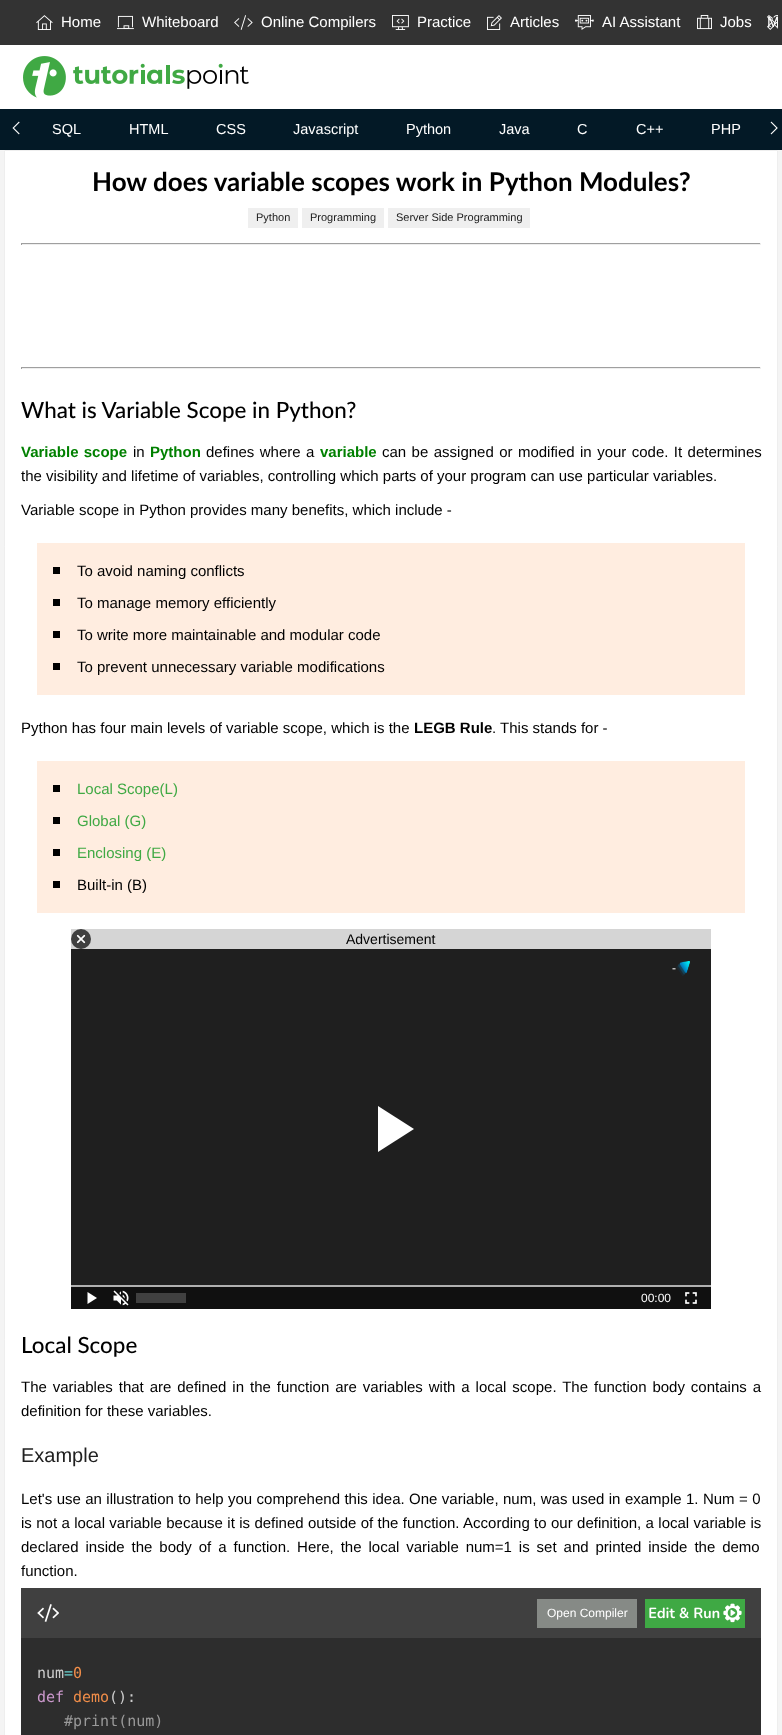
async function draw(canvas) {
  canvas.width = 782;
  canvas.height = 1735;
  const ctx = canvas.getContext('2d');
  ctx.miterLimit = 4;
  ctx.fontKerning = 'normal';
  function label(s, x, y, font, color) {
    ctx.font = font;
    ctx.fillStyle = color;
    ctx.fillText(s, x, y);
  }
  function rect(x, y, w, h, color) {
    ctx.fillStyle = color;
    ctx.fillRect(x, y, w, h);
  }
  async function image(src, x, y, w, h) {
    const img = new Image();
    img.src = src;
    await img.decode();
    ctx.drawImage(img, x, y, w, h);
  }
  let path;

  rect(0, 0, 782, 1735, '#031926');
  rect(0, 0, 782, 45, '#333');
  await image('assets/img1.png', 36, 15, 17, 15);
  label('Home', 61, 27, '15px Liberation Sans', '#fff');
  await image('assets/img2.png', 117, 15, 17, 15);
  label('Whiteboard', 142, 27, '15px Liberation Sans', '#fff');
  await image('assets/img3.png', 234, 15, 19, 15);
  label('Online Compilers', 261, 27, '15px Liberation Sans', '#fff');
  await image('assets/img4.png', 392, 15, 17, 15);
  label('Practice', 417, 27, '15px Liberation Sans', '#fff');
  await image('assets/img5.png', 487, 15, 15, 15);
  label('Articles', 510, 27, '15px Liberation Sans', '#fff');
  await image('assets/img6.png', 575, 15, 19, 15);
  label('AI Assistant', 602, 27, '15px Liberation Sans', '#fff');
  await image('assets/img7.png', 697, 15, 15, 15);
  label('Jobs', 720, 27, '15px Liberation Sans', '#fff');
  ctx.save();
  ctx.beginPath();
  ctx.rect(4, 1, 774, 43);
  ctx.clip();
  label('M', 767, 27, '15px Liberation Sans', '#fff');
  ctx.restore();
  await image('assets/img8.png', 767, 15, 11, 15);
  rect(0, 45, 782, 64, '#fff');
  await image('assets/img9.png', 23, 56, 226, 42);
  await image('assets/img10.png', 12, 121, 8, 14);
  label('SQL', 52, 134, '14.5px Liberation Sans', '#fff');
  label('HTML', 129, 134, '14.5px Liberation Sans', '#fff');
  label('CSS', 216, 134, '14.5px Liberation Sans', '#fff');
  label('Javascript', 293, 134, '14.5px Liberation Sans', '#fff');
  label('Python', 406, 134, '14.5px Liberation Sans', '#fff');
  label('Java', 499, 134, '14.5px Liberation Sans', '#fff');
  label('C', 577, 134, '14.5px Liberation Sans', '#fff');
  label('C++', 636, 134, '14.5px Liberation Sans', '#fff');
  label('PHP', 711, 134, '14.5px Liberation Sans', '#fff');
  await image('assets/img11.png', 770, 121, 8, 14);
  rect(0, 150, 782, 1585, '#f4f4f4');
  ctx.fillStyle = '#fff';
  ctx.beginPath();
  ctx.rect(4.5, 150.5, 773, 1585);
  ctx.fill();
  ctx.strokeStyle = '#eee';
  ctx.stroke();
  label('How does variable scopes work in Python Modules?', 92, 191, 'bold 26px Lato', '#000');
  rect(248, 208, 50, 20, '#efefef');
  label('Python', 256, 221, '11px Liberation Sans', '#1a1a1a');
  rect(302, 208, 82, 20, '#efefef');
  label('Programming', 310, 221, '11px Liberation Sans', '#1a1a1a');
  rect(388, 208, 142, 20, '#efefef');
  label('Server Side Programming', 396, 221, '11px Liberation Sans', '#1a1a1a');
  rect(21, 243, 740, 1, '#9f9f9f');
  rect(760, 243, 1, 2, '#eee');
  rect(21, 244, 740, 1, '#eee');
  rect(21, 243, 1, 2, '#9f9f9f');
  rect(21, 367, 740, 1, '#9f9f9f');
  rect(760, 367, 1, 2, '#eee');
  rect(21, 368, 740, 1, '#eee');
  rect(21, 367, 1, 2, '#9f9f9f');
  label('What is Variable Scope in Python?', 21, 418, '500 22.4px Lato', '#000');
  ctx.wordSpacing = '1px';
  label('Variable scope', 21, 457, 'bold 15px Liberation Sans', '#008000');
  ctx.wordSpacing = '0px';
  label('in', 133, 457, '15px Liberation Sans', '#000');
  label('Python', 150, 457, 'bold 15px Liberation Sans', '#008000');
  ctx.wordSpacing = '1.25px';
  label('defines where a', 206, 457, '15px Liberation Sans', '#000');
  ctx.wordSpacing = '0px';
  label('variable', 320, 457, 'bold 15px Liberation Sans', '#008000');
  ctx.wordSpacing = '1.25px';
  label('can be assigned or modified in your code. It determines', 382, 457, '15px Liberation Sans', '#000');
  ctx.wordSpacing = '0px';
  label('the visibility and lifetime of variables, controlling which parts of your program can use particular variables.', 21, 481, '15px Liberation Sans', '#000');
  label('Variable scope in Python provides many benefits, which include -', 21, 515, '15px Liberation Sans', '#000');
  rect(37, 543, 708, 152, '#ffede0');
  rect(53, 567, 7, 7, '#000');
  label('To avoid naming conflicts', 77, 576, '15px Liberation Sans', '#000');
  rect(53, 599, 7, 7, '#000');
  label('To manage memory efficiently', 77, 608, '15px Liberation Sans', '#000');
  rect(53, 631, 7, 7, '#000');
  label('To write more maintainable and modular code', 77, 640, '15px Liberation Sans', '#000');
  rect(53, 663, 7, 7, '#000');
  label('To prevent unnecessary variable modifications', 77, 672, '15px Liberation Sans', '#000');
  label('Python has four main levels of variable scope, which is the', 21, 733, '15px Liberation Sans', '#000');
  label('LEGB Rule', 414, 733, 'bold 15px Liberation Sans', '#000');
  label('. This stands for -', 492, 733, '15px Liberation Sans', '#000');
  rect(37, 761, 708, 152, '#ffede0');
  rect(53, 785, 7, 7, '#000');
  label('Local Scope(L)', 77, 794, '15px Liberation Sans', '#40a944');
  rect(53, 817, 7, 7, '#000');
  label('Global (G)', 77, 826, '15px Liberation Sans', '#40a944');
  rect(53, 849, 7, 7, '#000');
  label('Enclosing (E)', 77, 858, '15px Liberation Sans', '#40a944');
  rect(53, 881, 7, 7, '#000');
  label('Built-in (B)', 77, 890, '15px Liberation Sans', '#000');
  rect(71, 929, 640, 20, '#d5d5d5');
  ctx.fillStyle = '#404040';
  ctx.beginPath();
  ctx.arc(81, 939, 10, 0, 2 * Math.PI);
  ctx.fill();
  await image('assets/img12.png', 76, 934, 10, 10);
  label('Advertisement', 346, 944, '14px Liberation Sans', '#000');
  rect(71, 949, 640, 336, '#1f1f1f');
  ctx.fillStyle = '#fff';
  path = new Path2D('M378 1106V1152L414 1129Z');
  ctx.fill(path);
  label('-', 672, 972, '12px Liberation Sans', '#fff');
  await image('assets/img13.png', 676, 961, 14, 15);
  rect(71, 1285, 640, 2, '#b0b0b0');
  rect(71, 1287, 640, 22, '#101010');
  ctx.fillStyle = '#fff';
  path = new Path2D('M87.5 1292V1304L97 1298Z');
  ctx.fill(path);
  await image('assets/img14.png', 113, 1290, 16, 16);
  rect(136, 1293, 50, 10, '#404040');
  label('00:00', 641, 1302, '12px Liberation Sans', '#fff');
  await image('assets/img15.png', 685, 1292, 12, 12);
  label('Local Scope', 21, 1353, '500 22.4px Lato', '#000');
  ctx.wordSpacing = '1.75px';
  label('The variables that are defined in the function are variables with a local scope. The function body contains a', 21, 1392, '15px Liberation Sans', '#000');
  ctx.wordSpacing = '0px';
  label('definition for these variables.', 21, 1416, '15px Liberation Sans', '#000');
  label('Example', 21, 1462, '20px Liberation Sans', '#212121');
  ctx.wordSpacing = '0.25px';
  label('Let\'s use an illustration to help you comprehend this idea. One variable, num, was used in example 1. Num = 0', 21, 1504, '15px Liberation Sans', '#000');
  ctx.wordSpacing = '0.2px';
  label('is not a local variable because it is defined outside of the function. According to our definition, a local variable is', 21, 1528, '15px Liberation Sans', '#000');
  ctx.wordSpacing = '2.75px';
  label('declared inside the body of a function. Here, the local variable num=1 is set and printed inside the demo', 21, 1552, '15px Liberation Sans', '#000');
  ctx.wordSpacing = '0px';
  label('function.', 21, 1576, '15px Liberation Sans', '#000');
  rect(21, 1638, 740, 97, '#2d2d2d');
  rect(21, 1588, 740, 50, '#404040');
  await image('assets/img16.png', 37, 1604, 22, 18);
  rect(537, 1599, 100, 29, '#868a86');
  label('Open Compiler', 547, 1617, '12px Liberation Sans', '#fff');
  rect(645, 1599, 100, 29, '#3fa944');
  await image('assets/img17.png', 649, 1603, 93, 20);
  label('num', 37, 1678, '15px DejaVu Sans Mono', '#ccc');
  label('=', 64, 1678, '15px DejaVu Sans Mono', '#67cdcc');
  label('0', 73, 1678, '15px DejaVu Sans Mono', '#f08d49');
  label('def', 37, 1702, '15px DejaVu Sans Mono', '#cc99cd');
  label('demo', 73, 1702, '15px DejaVu Sans Mono', '#f08d49');
  label('():', 109, 1702, '15px DejaVu Sans Mono', '#ccc');
  label('#print(num)', 64, 1726, '15px DejaVu Sans Mono', '#999');
}

draw(document.querySelector('canvas'));
